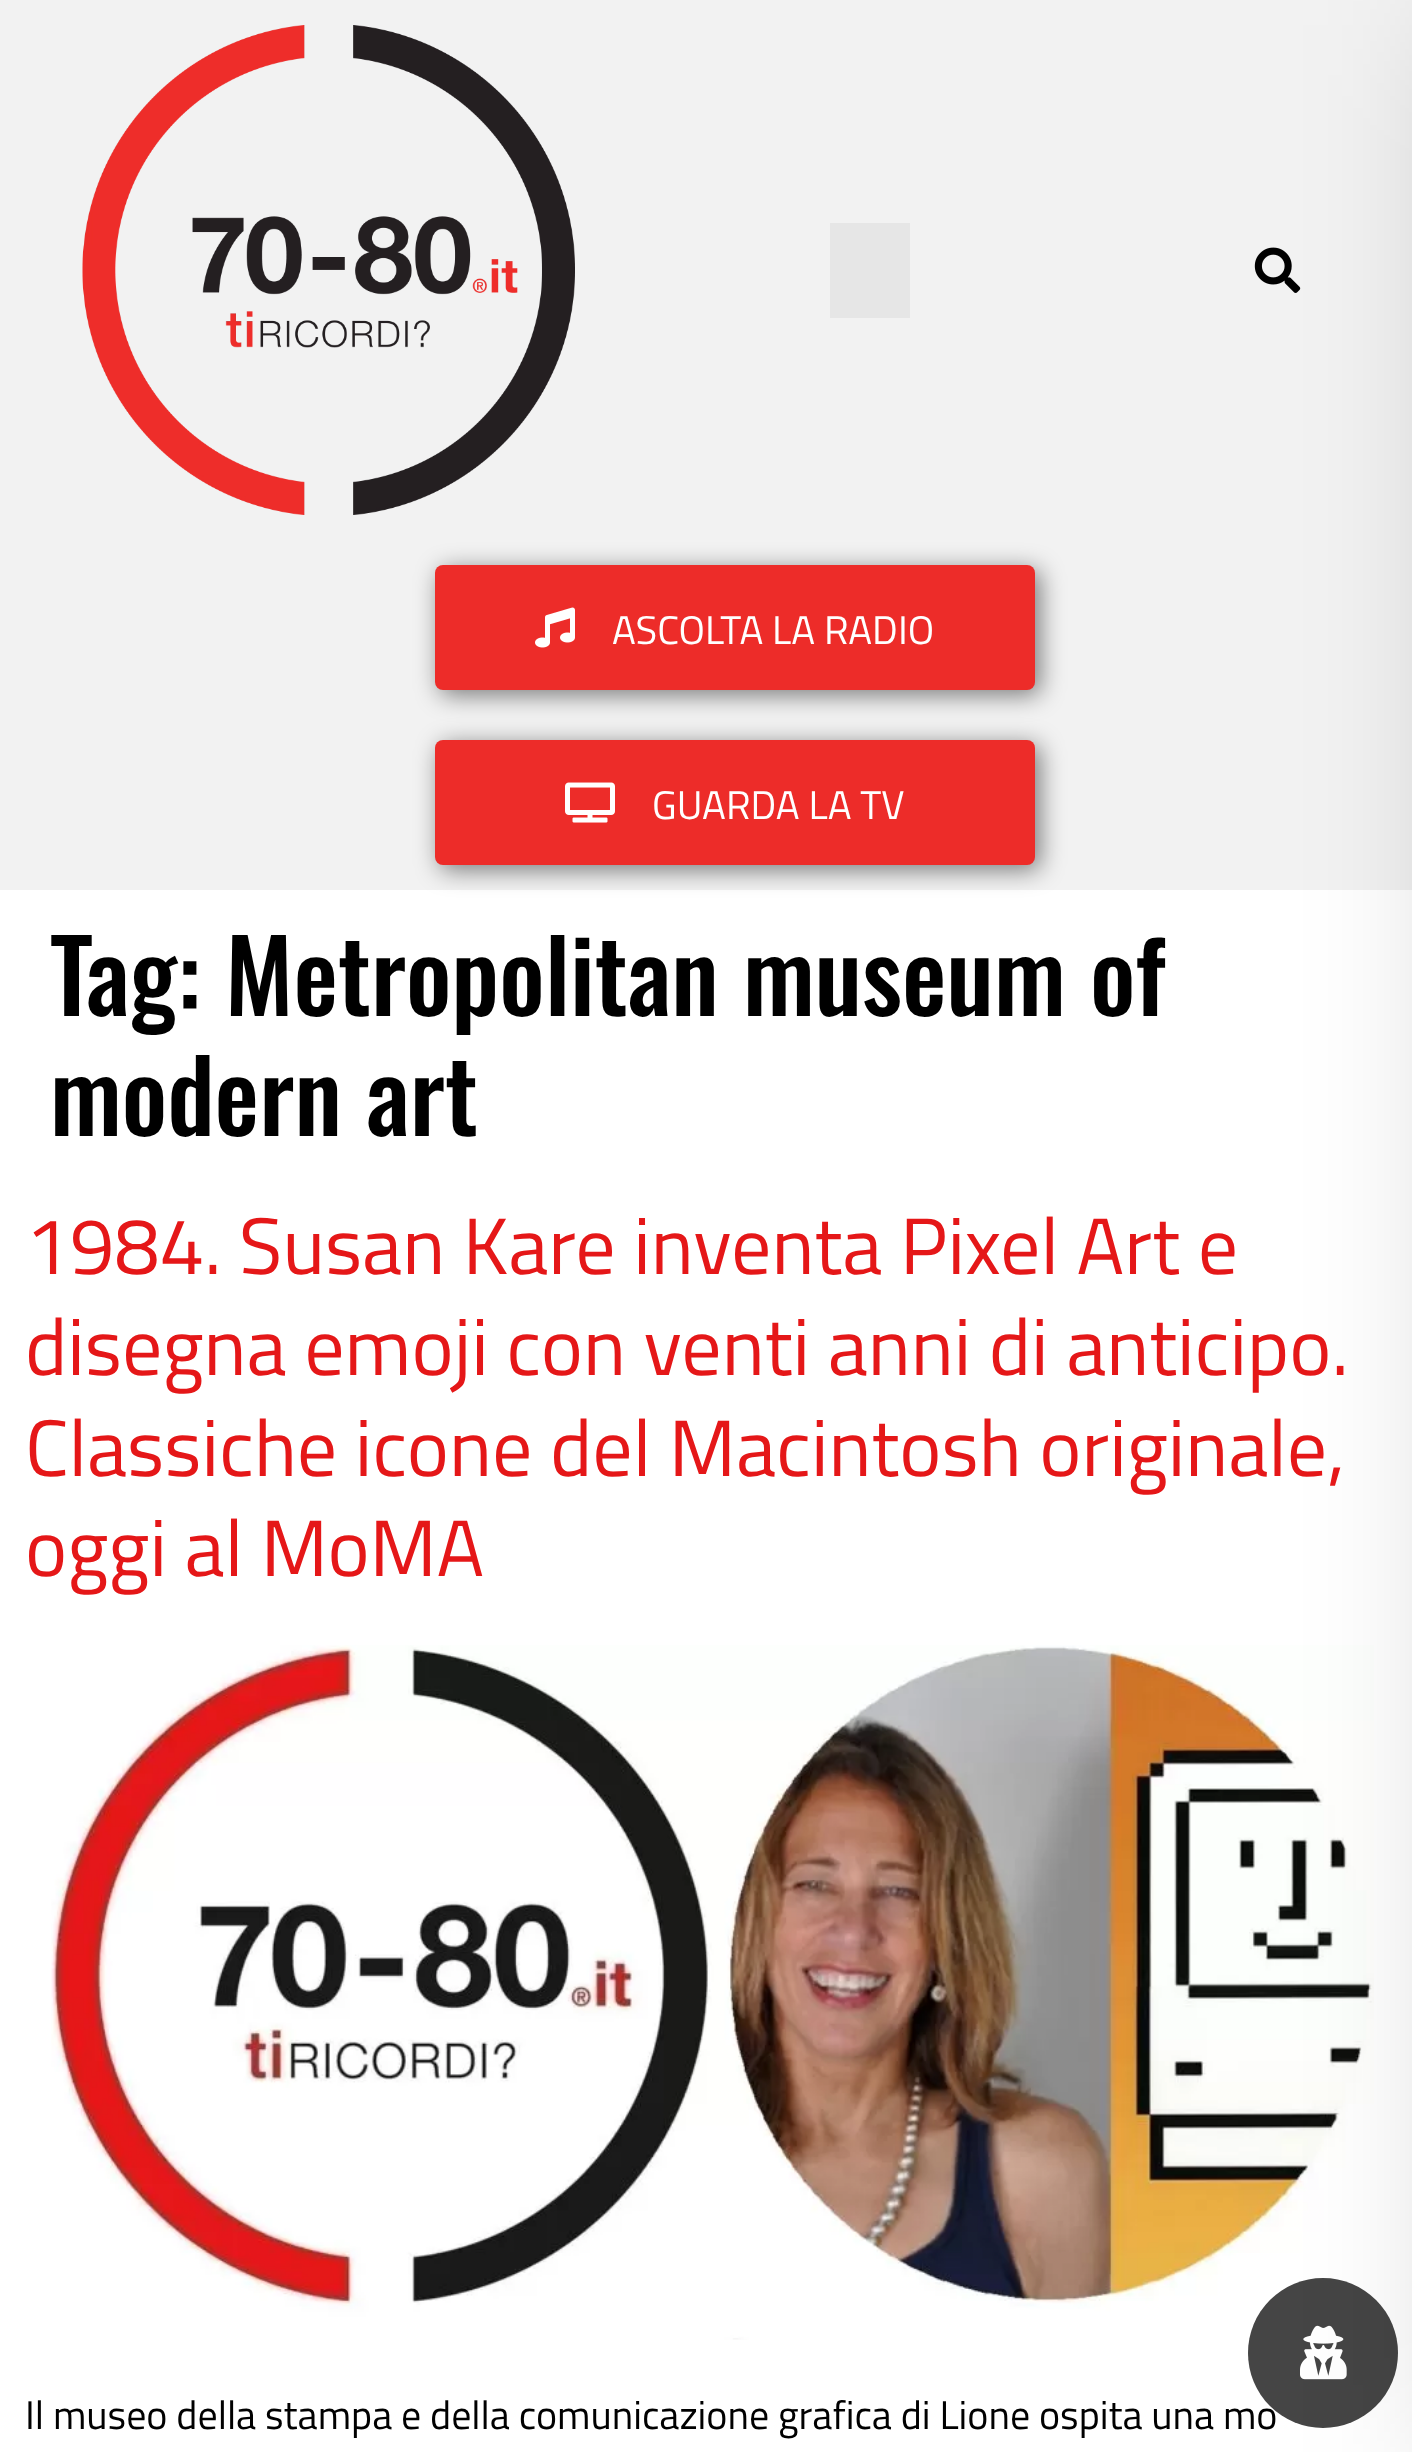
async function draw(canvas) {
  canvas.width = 1412;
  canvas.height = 2452;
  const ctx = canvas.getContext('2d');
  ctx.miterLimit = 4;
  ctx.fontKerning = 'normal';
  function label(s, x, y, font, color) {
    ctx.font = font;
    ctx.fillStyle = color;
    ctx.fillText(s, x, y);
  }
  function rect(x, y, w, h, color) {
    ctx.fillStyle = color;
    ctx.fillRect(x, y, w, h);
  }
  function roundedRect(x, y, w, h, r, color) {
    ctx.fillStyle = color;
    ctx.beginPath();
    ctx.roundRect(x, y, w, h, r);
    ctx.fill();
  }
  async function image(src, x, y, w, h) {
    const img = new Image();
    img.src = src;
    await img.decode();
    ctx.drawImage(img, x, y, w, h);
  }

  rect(0, 0, 1412, 2452, '#fff');
  rect(0, 0, 1412, 890, '#f2f2f2');
  await image('assets/img1.png', 82, 25, 493, 490);
  rect(830, 223, 80, 95, '#e6e6e6');
  await image('assets/img2.png', 1254, 247, 47, 46);
  ctx.fillStyle = '#00000080';
  ctx.filter = 'blur(12.5px)';
  ctx.beginPath();
  ctx.roundRect(440, 570, 600, 125, 8);
  ctx.fill();
  ctx.filter = 'none';
  roundedRect(435, 565, 600, 125, 8, '#ed2c29');
  await image('assets/img3.png', 535, 607, 40, 41);
  label('ASCOLTA LA RADIO', 612, 644, '40px Titillium Web', '#fff');
  ctx.fillStyle = '#00000080';
  ctx.filter = 'blur(12.5px)';
  ctx.beginPath();
  ctx.roundRect(440, 745, 600, 125, 8);
  ctx.fill();
  ctx.filter = 'none';
  roundedRect(435, 740, 600, 125, 8, '#ed2c29');
  await image('assets/img4.png', 565, 782, 50, 41);
  label('GUARDA LA TV', 652, 819, '40px Titillium Web', '#fff');
  await image('assets/img5.png', 51, 1645, 1323, 695);
  label('Il museo della stampa e della comunicazione grafica di Lione ospita una mo', 25, 2429, '40px Titillium Web', '#000');
  ctx.fillStyle = '#454545';
  ctx.beginPath();
  ctx.arc(1323, 2353, 75, 0, 2 * Math.PI);
  ctx.fill();
  await image('assets/img6.png', 1300, 2325, 47, 55);
  ctx.fillStyle = '#00000033';
  ctx.filter = 'blur(75px)';
  ctx.beginPath();
  ctx.rect(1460, 25, 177, 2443);
  ctx.fill();
  ctx.filter = 'none';
  label('Tag: Metropolitan museum of', 50, 1016, '500 100px Oswald', '#000');
  label('modern art', 50, 1136, '500 100px Oswald', '#000');
  label('1984. Susan Kare inventa Pixel Art e', 25, 1274, '80px Titillium Web', '#e51718');
  label('disegna emoji con venti anni di anticipo.', 25, 1375, '80px Titillium Web', '#e51718');
  label('Classiche icone del Macintosh originale,', 25, 1476, '80px Titillium Web', '#e51718');
  label('oggi al MoMA', 25, 1576, '80px Titillium Web', '#e51718');
}

draw(document.querySelector('canvas'));
